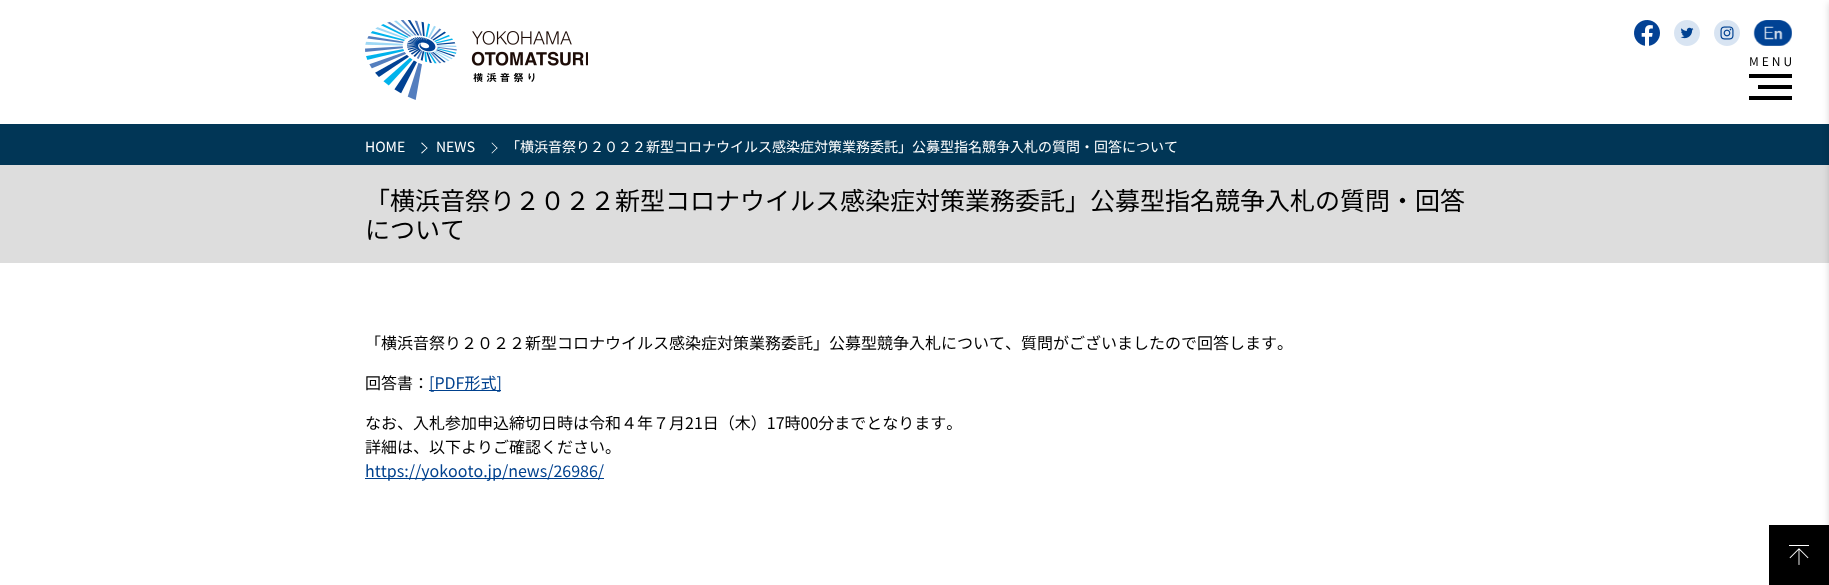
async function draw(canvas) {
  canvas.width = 1829;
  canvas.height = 585;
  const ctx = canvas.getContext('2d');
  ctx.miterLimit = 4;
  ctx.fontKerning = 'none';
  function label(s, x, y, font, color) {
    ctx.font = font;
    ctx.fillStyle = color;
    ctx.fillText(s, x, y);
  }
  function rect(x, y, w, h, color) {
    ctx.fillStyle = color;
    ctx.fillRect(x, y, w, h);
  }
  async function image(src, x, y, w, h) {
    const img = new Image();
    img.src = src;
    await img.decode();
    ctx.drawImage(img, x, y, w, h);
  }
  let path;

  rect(0, 0, 1829, 585, '#fff');
  await image('assets/img1.png', 365, 20, 223, 80);
  await image('assets/img2.png', 1634, 20, 26, 26);
  await image('assets/img3.png', 1674, 20, 26, 26);
  await image('assets/img4.png', 1714, 20, 26, 26);
  await image('assets/img5.png', 1753, 20, 39, 26);
  ctx.letterSpacing = '3px';
  label('MENU', 1749, 66, '12px Noto Sans JP', '#000');
  rect(1749, 74, 43, 4, '#000');
  rect(1758, 85, 34, 4, '#000');
  rect(1749, 96, 43, 4, '#000');
  rect(0, 124, 1829, 41, '#013656');
  rect(0, 165, 1829, 98, '#ddd');
  rect(1769, 525, 60, 60, '#000');
  ctx.fillStyle = '#00000029';
  ctx.filter = 'blur(3px)';
  ctx.beginPath();
  ctx.rect(1829, 3, 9, 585);
  ctx.fill();
  ctx.filter = 'none';
  ctx.letterSpacing = '0px';
  label('HOME', 365, 152, '14px Noto Sans JP', '#fff');
  path = new Path2D('M422 142.5L427.5 148L427 148.5L421 143Z');
  ctx.fill(path);
  path = new Path2D('M427 147.5L427.5 148L422 153.5L421 153Z');
  ctx.fill(path);
  label('NEWS', 436, 152, '14px Noto Sans JP', '#fff');
  path = new Path2D('M492 142.5L497.5 148L497 148.5L491.5 143Z');
  ctx.fill(path);
  path = new Path2D('M497 147.5L497.5 148L492 153.5L491.5 153Z');
  ctx.fill(path);
  label('「横浜音祭り２０２２新型コロナウイルス感染症対策業務委託」公募型指名競争入札の質問・回答について', 506, 152, '14px Noto Sans JP', '#fff');
  label('「横浜音祭り２０２２新型コロナウイルス感染症対策業務委託」公募型指名競争入札の質問・回答', 365, 210, '25px Noto Sans JP', '#000');
  label('について', 365, 239, '25px Noto Sans JP', '#000');
  label('「横浜音祭り２０２２新型コロナウイルス感染症対策業務委託」公募型競争入札について、質問がございましたので回答します。', 365, 349, '16px Noto Sans JP', '#000');
  label('回答書：', 365, 389, '16px Noto Sans JP', '#000');
  rect(429, 390, 72, 1, '#00418e');
  label('[PDF形式]', 429, 389, '16px Noto Sans JP', '#00418e');
  label('なお、入札参加申込締切日時は令和４年７月21日（木）17時00分までとなります。', 365, 429, '16px Noto Sans JP', '#000');
  label('詳細は、以下よりご確認ください。', 365, 453, '16px Noto Sans JP', '#000');
  rect(365, 478, 239, 1, '#00418e');
  label('https://yokooto.jp/news/26986/', 365, 477, '16px Noto Sans JP', '#00418e');
  await image('assets/img6.png', 1789, 545, 20, 20);
}

draw(document.querySelector('canvas'));
